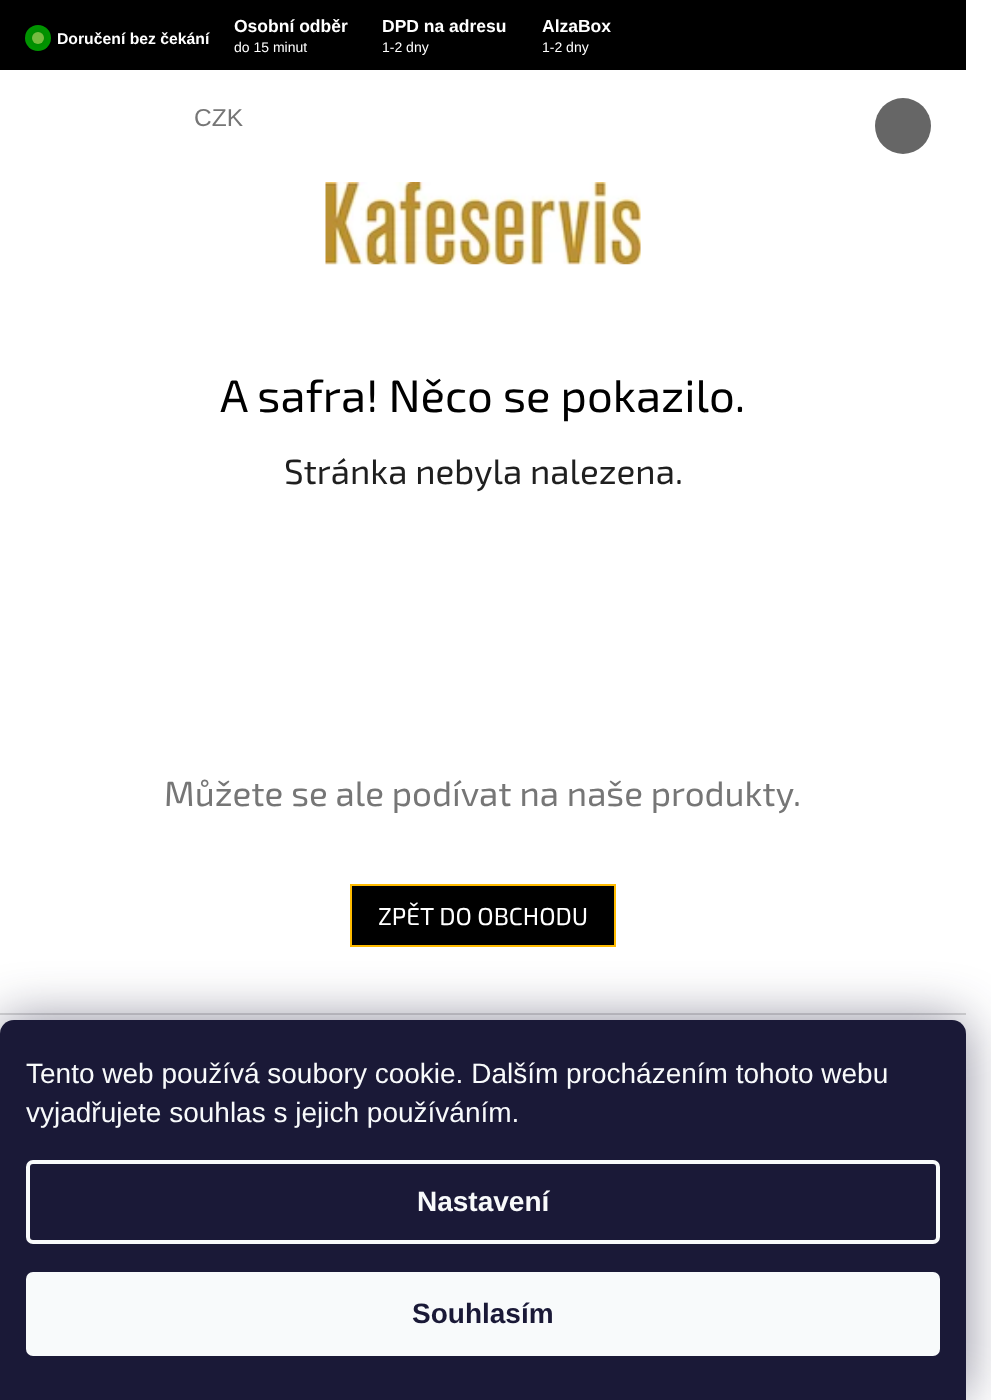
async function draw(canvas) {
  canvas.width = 991;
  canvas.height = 1400;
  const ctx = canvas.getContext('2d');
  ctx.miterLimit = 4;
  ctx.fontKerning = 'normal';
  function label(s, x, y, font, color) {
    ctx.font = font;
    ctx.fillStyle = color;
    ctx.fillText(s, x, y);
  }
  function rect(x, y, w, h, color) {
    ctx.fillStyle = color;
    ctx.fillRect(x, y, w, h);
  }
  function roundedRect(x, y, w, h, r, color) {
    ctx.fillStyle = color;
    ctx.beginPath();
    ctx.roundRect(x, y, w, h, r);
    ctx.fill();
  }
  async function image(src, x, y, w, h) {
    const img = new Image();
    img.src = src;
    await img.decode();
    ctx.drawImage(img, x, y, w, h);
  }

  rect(0, 0, 991, 1400, '#fff');
  rect(0, 0, 966, 70, '#000');
  label('Osobní odběr', 234, 32, 'bold 17.5px Liberation Sans', '#fff');
  label('DPD na adresu', 382, 32, 'bold 17.5px Liberation Sans', '#fff');
  label('AlzaBox', 542, 32, 'bold 17.5px Liberation Sans', '#fff');
  ctx.fillStyle = '#009901';
  ctx.beginPath();
  ctx.arc(38, 38, 13, 0, 2 * Math.PI);
  ctx.fill();
  ctx.fillStyle = '#0000004d';
  ctx.filter = 'blur(7px)';
  ctx.beginPath();
  ctx.roundRect(32, 32, 12, 12, 6);
  ctx.fill();
  ctx.filter = 'none';
  ctx.fillStyle = '#76bb40';
  ctx.beginPath();
  ctx.arc(38, 38, 6, 0, 2 * Math.PI);
  ctx.fill();
  label('Doručení bez čekání', 57, 44, 'bold 15.75px Liberation Sans', '#fff');
  label('do 15 minut', 234, 52, '14px Liberation Sans', '#fff');
  label('1-2 dny', 382, 52, '14px Liberation Sans', '#fff');
  label('1-2 dny', 542, 52, '14px Liberation Sans', '#fff');
  label('CZK', 194, 126, '24.5px Liberation Sans', '#767676');
  ctx.fillStyle = '#666';
  ctx.beginPath();
  ctx.arc(903, 126, 28, 0, 2 * Math.PI);
  ctx.fill();
  await image('assets/img1.png', 325, 182, 316, 83);
  label('A safra! Něco se pokazilo.', 220, 412, '45.5px "Exo 2"', '#000');
  label('Stránka nebyla nalezena.', 284, 484, '35px "Exo 2"', '#1f1f1f');
  label('Můžete se ale podívat na naše produkty.', 164, 806, '35px "Exo 2"', '#767676');
  ctx.fillStyle = '#000';
  ctx.beginPath();
  ctx.rect(351, 885, 264, 61);
  ctx.fill();
  ctx.strokeStyle = '#fb0';
  ctx.lineWidth = 2;
  ctx.stroke();
  label('ZPĚT DO OBCHODU', 378, 925, '24.5px "Exo 2"', '#fff');
  rect(0, 1013, 966, 2, '#dadada');
  ctx.fillStyle = '#1b193980';
  ctx.filter = 'blur(26px)';
  ctx.beginPath();
  ctx.roundRect(0, 1020, 966, 380, 14);
  ctx.fill();
  ctx.filter = 'none';
  ctx.fillStyle = '#1a1937';
  ctx.beginPath();
  ctx.roundRect(0, 1020, 966, 380, [14, 14, 0, 0]);
  ctx.fill();
  label('Tento web používá soubory cookie. Dalším procházením tohoto webu', 26, 1083, '28px Liberation Sans', '#f8fafb');
  label('vyjadřujete souhlas s jejich používáním.', 26, 1122, '28px Liberation Sans', '#f8fafb');
  ctx.beginPath();
  ctx.roundRect(28, 1162, 910, 80, 5);
  ctx.strokeStyle = '#f8fafb';
  ctx.lineWidth = 4;
  ctx.stroke();
  label('Nastavení', 417, 1211, 'bold 28px Liberation Sans', '#f8fafb');
  roundedRect(26, 1272, 914, 84, 7, '#f8fafb');
  label('Souhlasím', 412, 1323, 'bold 28px Liberation Sans', '#1a1937');
}

draw(document.querySelector('canvas'));
